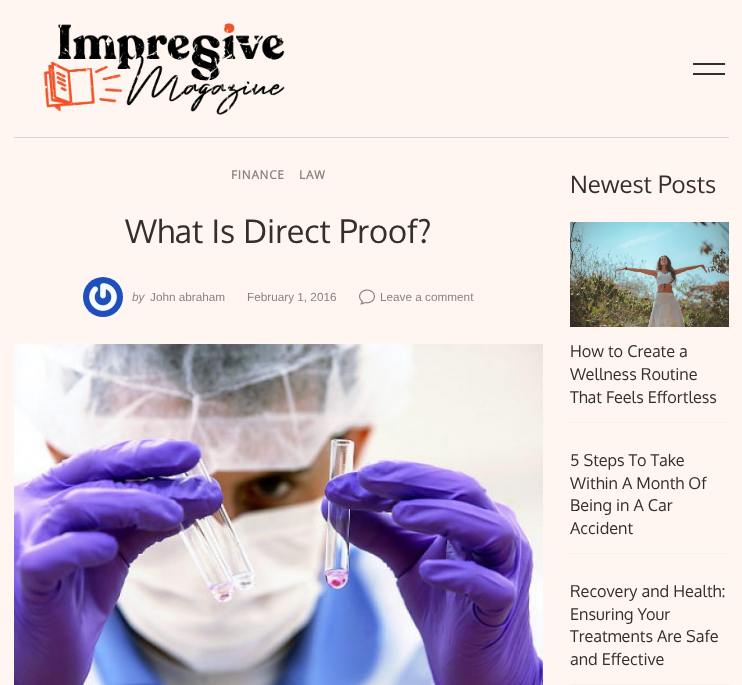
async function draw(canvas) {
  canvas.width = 742;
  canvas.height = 685;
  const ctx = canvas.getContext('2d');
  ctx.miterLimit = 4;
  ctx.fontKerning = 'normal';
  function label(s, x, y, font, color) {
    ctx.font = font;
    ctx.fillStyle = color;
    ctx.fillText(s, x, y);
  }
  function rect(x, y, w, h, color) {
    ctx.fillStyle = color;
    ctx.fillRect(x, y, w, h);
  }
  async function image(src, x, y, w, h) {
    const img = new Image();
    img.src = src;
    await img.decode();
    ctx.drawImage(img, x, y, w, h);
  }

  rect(0, 0, 742, 685, '#fff6f1');
  await image('assets/img1.png', 43, 23, 242, 92);
  rect(693, 63, 32, 2, '#332f2e');
  rect(693, 73, 32, 2, '#332f2e');
  rect(14, 137, 715, 1, '#e3d1c7');
  ctx.letterSpacing = '0.75px';
  label('FINANCE', 231, 179, 'bold 11.75px Open Sans', '#91807e');
  label('LAW', 299, 179, 'bold 11.75px Open Sans', '#91807e');
  ctx.letterSpacing = '0px';
  label('What Is Direct Proof?', 125, 243, '32.5px Oxygen', '#332f2e');
  await image('assets/img2.png', 83, 277, 40, 40);
  label('by', 132, 301, 'italic 11.75px Liberation Sans', '#91807e');
  label('John abraham', 150, 301, '11.75px Liberation Sans', '#91807e');
  label('February 1, 2016', 247, 301, '11.75px Liberation Sans', '#91807e');
  await image('assets/img3.png', 359, 289, 16, 16);
  label('Leave a comment', 380, 301, '11.75px Liberation Sans', '#91807e');
  await image('assets/img4.png', 14, 344, 529, 341);
  label('Newest Posts', 570, 193, '24px Oxygen', '#332f2e');
  await image('assets/img5.png', 570, 222, 159, 105);
  label('How to Create a', 570, 357, '16.25px Oxygen', '#332f2e');
  label('Wellness Routine', 570, 380, '16.25px Oxygen', '#332f2e');
  label('That Feels Effortless', 570, 403, '16.25px Oxygen', '#332f2e');
  rect(570, 422, 159, 1, '#f9efe9');
  label('5 Steps To Take', 570, 466, '16.25px Oxygen', '#332f2e');
  label('Within A Month Of', 570, 489, '16.25px Oxygen', '#332f2e');
  label('Being in A Car', 570, 511, '16.25px Oxygen', '#332f2e');
  label('Accident', 570, 534, '16.25px Oxygen', '#332f2e');
  rect(570, 553, 159, 1, '#f9efe9');
  label('Recovery and Health:', 570, 597, '16.25px Oxygen', '#332f2e');
  label('Ensuring Your', 570, 620, '16.25px Oxygen', '#332f2e');
  label('Treatments Are Safe', 570, 642, '16.25px Oxygen', '#332f2e');
  label('and Effective', 570, 665, '16.25px Oxygen', '#332f2e');
  rect(570, 684, 159, 1, '#f9efe9');
}

draw(document.querySelector('canvas'));
